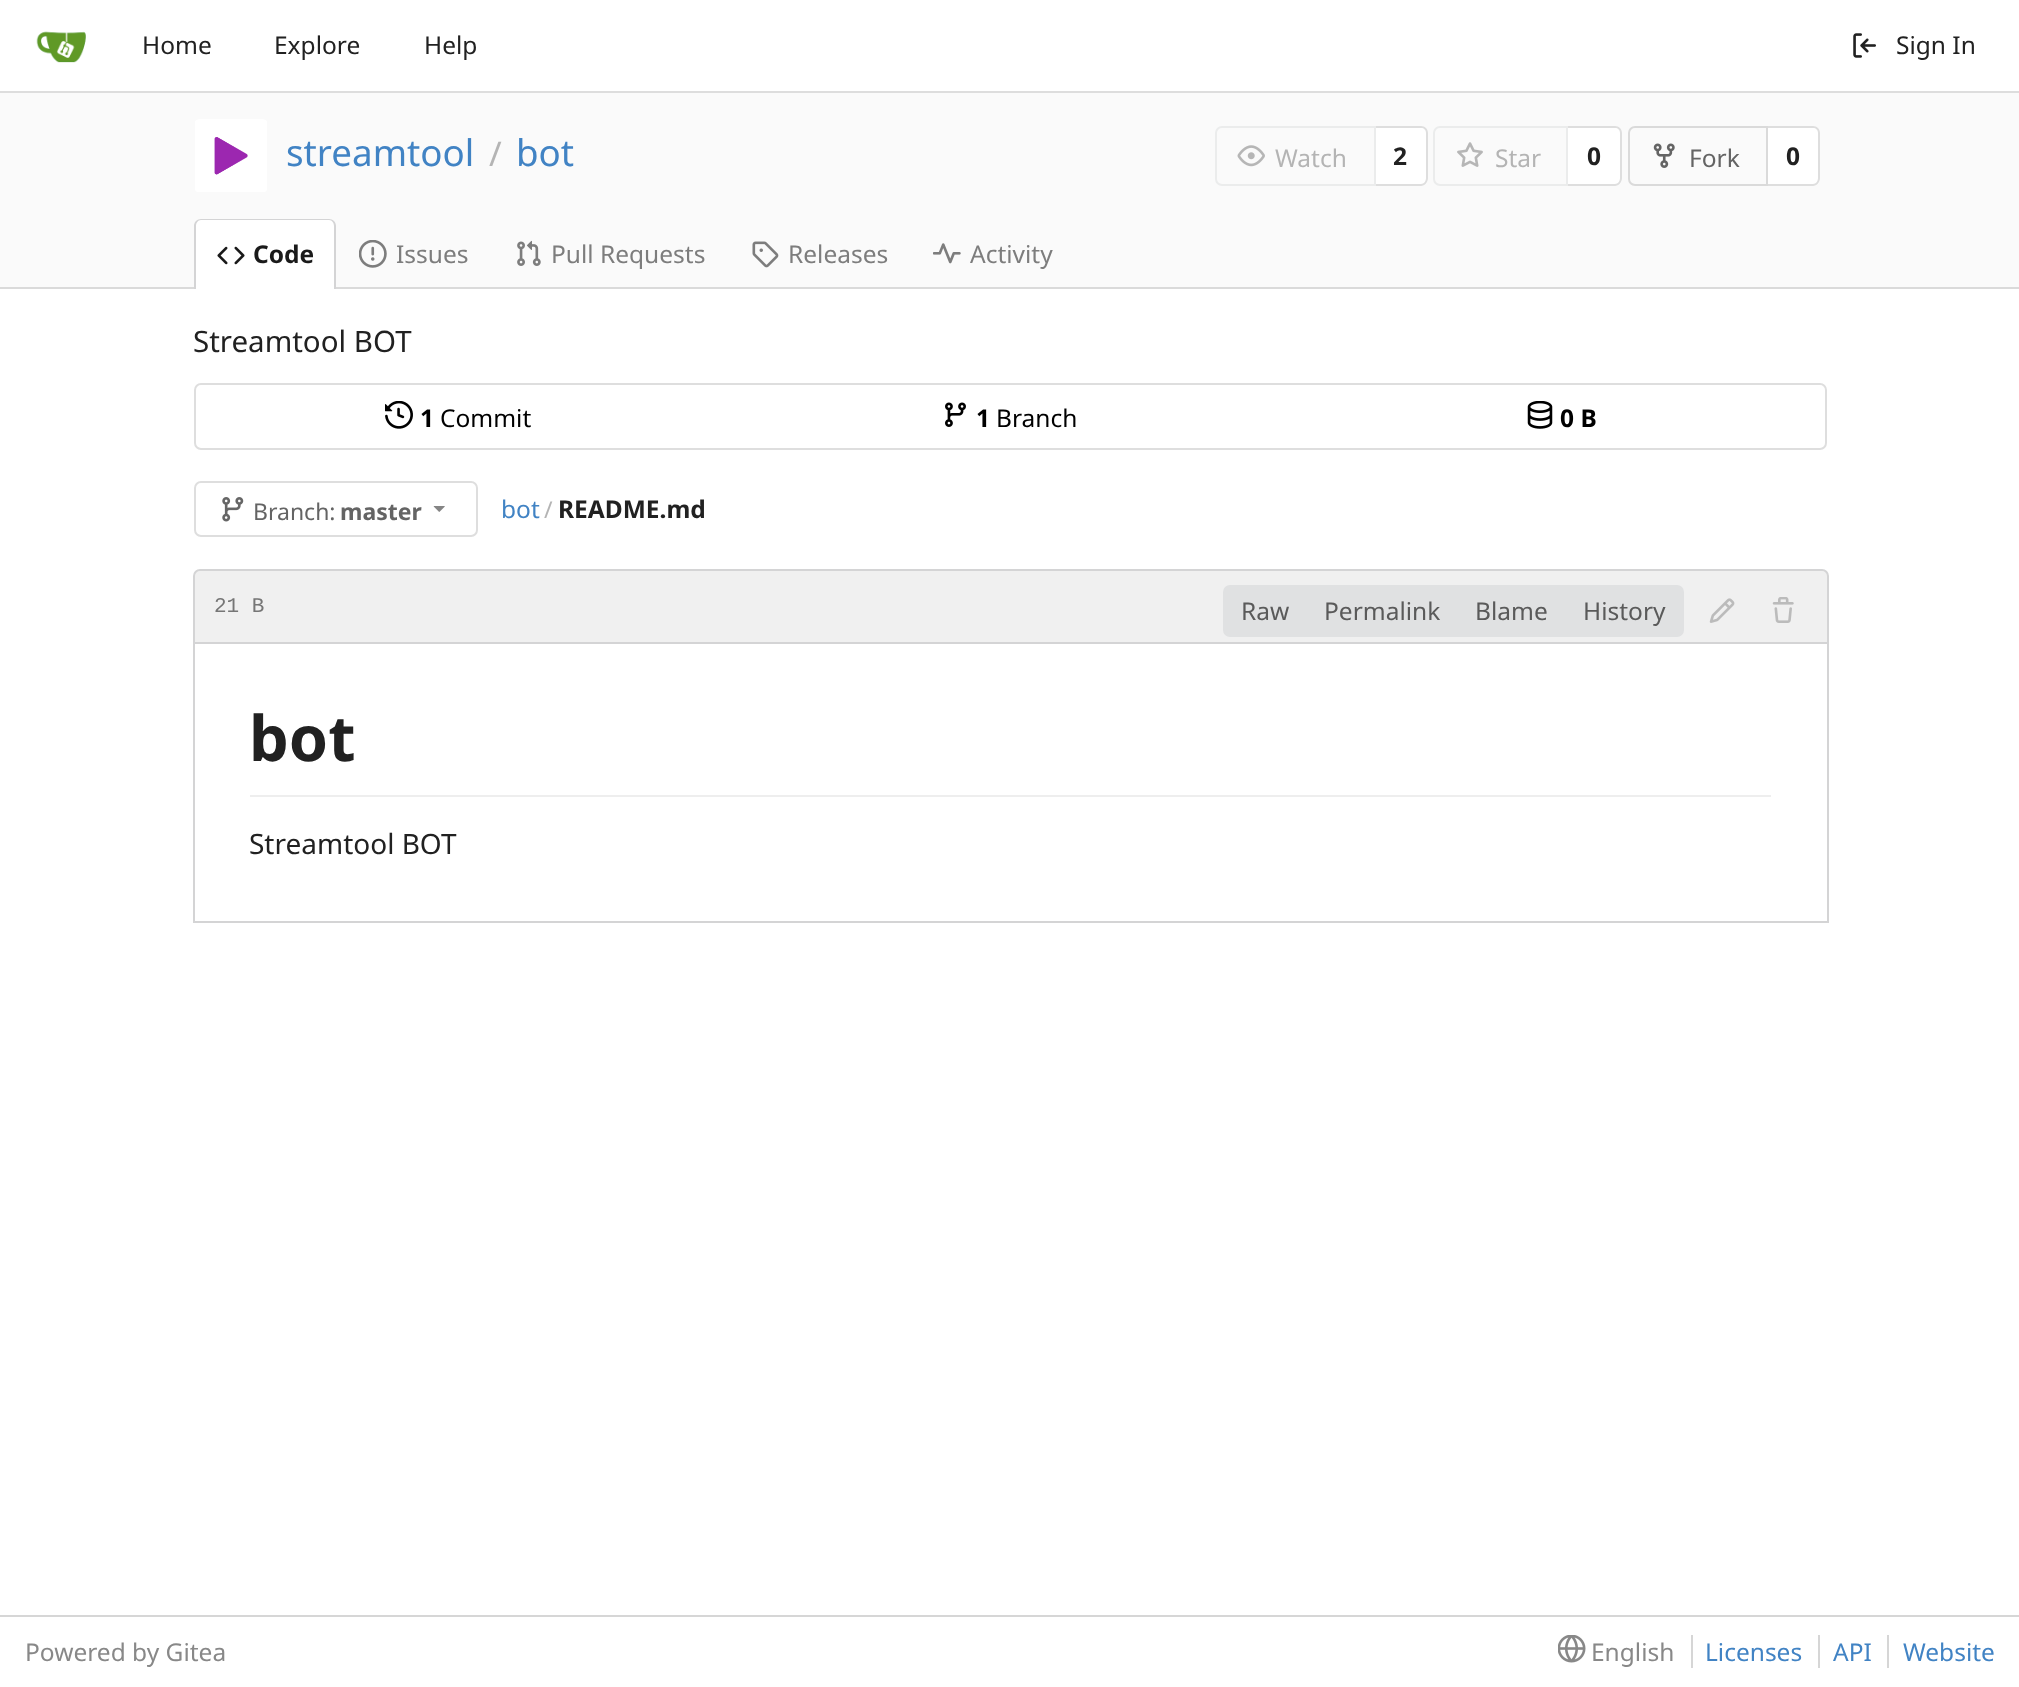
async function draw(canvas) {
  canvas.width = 2019;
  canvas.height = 1687;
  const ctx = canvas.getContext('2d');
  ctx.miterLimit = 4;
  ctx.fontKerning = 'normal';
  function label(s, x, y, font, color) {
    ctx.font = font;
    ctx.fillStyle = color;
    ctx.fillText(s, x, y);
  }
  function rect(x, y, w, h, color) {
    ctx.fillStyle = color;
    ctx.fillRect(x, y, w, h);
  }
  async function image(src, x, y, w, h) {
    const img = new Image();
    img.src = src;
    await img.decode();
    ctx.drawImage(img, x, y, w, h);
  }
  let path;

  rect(0, 0, 2019, 1687, '#fff');
  rect(0, 91, 2019, 2, '#ddd');
  await image('assets/img1.png', 36, 31, 50, 32);
  label('Home', 142, 54, '24.5px Noto Sans', '#212121');
  label('Explore', 274, 54, '24.5px Noto Sans', '#212121');
  label('Help', 424, 54, '24.5px Noto Sans', '#212121');
  await image('assets/img2.png', 1853, 33, 23, 25);
  label('Sign In', 1896, 54, '24.5px Noto Sans', '#212121');
  rect(0, 93, 2019, 194, '#fafafa');
  await image('assets/img3.png', 195, 119, 72, 73);
  label('streamtool', 286, 166, '36.75px Noto Sans', '#4183c4');
  label('/', 489, 166, '34px Noto Sans', '#b4b4b4');
  label('bot', 516, 166, '36.75px Noto Sans', '#4183c4');
  ctx.beginPath();
  ctx.roundRect(1216, 127, 159, 58, [6, 0, 0, 6]);
  ctx.strokeStyle = '#ebecec';
  ctx.lineWidth = 2;
  ctx.stroke();
  await image('assets/img4.png', 1237, 145, 28, 22);
  label('Watch', 1275, 167, '24.5px Noto Sans', '#b4b4b4');
  ctx.fillStyle = '#fff';
  ctx.beginPath();
  ctx.roundRect(1376, 126, 52, 60, [0, 7, 7, 0]);
  ctx.fill();
  ctx.fillStyle = '#dedede';
  path = new Path2D('M1376 126H1421C1425 126 1428 129 1428 133V178C1428 182 1425 186 1421 186H1376ZM1376 128H1421C1424 128 1426 130 1426 133V178C1426 181 1424 184 1421 184H1376Z');
  ctx.fill(path, 'evenodd');
  label('2', 1393, 165, 'bold 24.5px Noto Sans', '#212121');
  ctx.beginPath();
  ctx.roundRect(1434, 127, 133, 58, [6, 0, 0, 6]);
  ctx.stroke();
  await image('assets/img5.png', 1457, 142, 26, 25);
  label('Star', 1495, 167, '24.5px Noto Sans', '#b4b4b4');
  ctx.fillStyle = '#fff';
  ctx.beginPath();
  ctx.roundRect(1568, 126, 54, 60, [0, 7, 7, 0]);
  ctx.fill();
  ctx.fillStyle = '#dedede';
  path = new Path2D('M1568 126H1615C1619 126 1622 129 1622 133V178C1622 182 1619 186 1615 186H1568ZM1568 128H1615C1618 128 1620 130 1620 133V178C1620 181 1618 184 1615 184H1568Z');
  ctx.fill(path, 'evenodd');
  label('0', 1587, 165, 'bold 24.5px Noto Sans', '#212121');
  ctx.beginPath();
  ctx.roundRect(1629, 127, 138, 58, [6, 0, 0, 6]);
  ctx.strokeStyle = '#dadada';
  ctx.stroke();
  await image('assets/img6.png', 1653, 143, 22, 25);
  label('Fork', 1689, 167, '24.5px Noto Sans', '#646464');
  ctx.fillStyle = '#fff';
  ctx.beginPath();
  ctx.roundRect(1768, 126, 52, 60, [0, 7, 7, 0]);
  ctx.fill();
  ctx.fillStyle = '#dedede';
  path = new Path2D('M1768 126H1813C1817 126 1820 129 1820 133V178C1820 182 1817 186 1813 186H1768ZM1768 128H1813C1816 128 1818 130 1818 133V178C1818 181 1816 184 1813 184H1768Z');
  ctx.fill(path, 'evenodd');
  label('0', 1786, 165, 'bold 24.5px Noto Sans', '#212121');
  rect(0, 287, 2019, 2, '#dadada');
  ctx.fillStyle = '#fff';
  ctx.beginPath();
  ctx.roundRect(194, 219, 142, 70, [7, 7, 0, 0]);
  ctx.fill();
  ctx.fillStyle = '#d4d4d5';
  path = new Path2D('M201 219H329C333 219 336 222 336 226V289H194V226C194 222 197 219 201 219ZM201 220H329C332 220 334 223 334 226V289H196V226C196 223 198 220 201 220Z');
  ctx.fill(path, 'evenodd');
  await image('assets/img7.png', 217, 246, 28, 19);
  label('Code', 253, 263, 'bold 24.5px Noto Sans', '#1a1a1a');
  await image('assets/img8.png', 359, 240, 28, 28);
  label('Issues', 396, 263, '24.5px Noto Sans', '#7d7d7d');
  await image('assets/img9.png', 517, 240, 24, 26);
  label('Pull Requests', 551, 263, '24.5px Noto Sans', '#7d7d7d');
  await image('assets/img10.png', 752, 241, 27, 27);
  label('Releases', 788, 263, '24.5px Noto Sans', '#7d7d7d');
  await image('assets/img11.png', 933, 243, 28, 21);
  label('Activity', 970, 263, '24.5px Noto Sans', '#7d7d7d');
  label('Streamtool BOT', 193, 352, '29.5px Noto Sans', '#212121');
  ctx.beginPath();
  ctx.roundRect(195, 384, 1631, 65, 6);
  ctx.strokeStyle = '#dedede';
  ctx.stroke();
  await image('assets/img12.png', 385, 401, 28, 28);
  label('1', 420, 427, 'bold 24.5px Noto Sans', '#000');
  label('Commit', 440, 427, '24.5px Noto Sans', '#000');
  await image('assets/img13.png', 945, 402, 21, 25);
  label('1', 976, 427, 'bold 24.5px Noto Sans', '#000');
  label('Branch', 996, 427, '24.5px Noto Sans', '#000');
  await image('assets/img14.png', 1527, 401, 26, 28);
  label('0 B', 1560, 427, 'bold 24.5px Noto Sans', '#000');
  ctx.beginPath();
  ctx.roundRect(195, 482, 282, 54, 6);
  ctx.stroke();
  await image('assets/img15.png', 222, 497, 22, 25);
  label('Branch:', 253, 520, '23px Noto Sans', '#646464');
  label('master', 340, 520, 'bold 23px Noto Sans', '#646464');
  await image('assets/img16.png', 433, 506, 12, 6);
  label('bot', 501, 518, '24.5px Noto Sans', '#4183c4');
  label('/', 544, 518, '23px Noto Sans', '#b4b4b4');
  label('README.md', 558, 518, 'bold 24.5px Noto Sans', '#212121');
  ctx.fillStyle = '#f0f0f0';
  ctx.beginPath();
  ctx.roundRect(194, 570, 1634, 73, [6, 6, 0, 0]);
  ctx.fill();
  ctx.strokeStyle = '#d4d4d5';
  ctx.stroke();
  label('21 B', 214, 612, '21px Liberation Mono', '#767676');
  ctx.fillStyle = '#e0e1e2';
  ctx.beginPath();
  ctx.roundRect(1223, 585, 84, 52, [7, 0, 0, 7]);
  ctx.fill();
  label('Raw', 1241, 620, '24.5px Noto Sans', '#5a5a5a');
  rect(1307, 585, 259, 52, '#e0e1e2');
  label('Permalink', 1324, 620, '24.5px Noto Sans', '#5a5a5a');
  label('Blame', 1475, 620, '24.5px Noto Sans', '#5a5a5a');
  ctx.fillStyle = '#e0e1e2';
  ctx.beginPath();
  ctx.roundRect(1566, 585, 118, 52, [0, 7, 7, 0]);
  ctx.fill();
  label('History', 1583, 620, '24.5px Noto Sans', '#5a5a5a');
  await image('assets/img17.png', 1709, 598, 26, 25);
  await image('assets/img18.png', 1772, 597, 22, 26);
  rect(1827, 644, 2, 278, '#d4d4d5');
  rect(193, 921, 1636, 2, '#d4d4d5');
  rect(193, 644, 2, 278, '#d4d4d5');
  rect(250, 795, 1521, 2, '#eee');
  label('bot', 249, 761, 'bold 63px Noto Sans', '#212121');
  label('Streamtool BOT', 249, 854, '28px Noto Sans', '#212121');
  rect(0, 1615, 2019, 2, '#d6d6d6');
  label('Powered by Gitea', 25, 1661, '24.5px Noto Sans', '#888');
  await image('assets/img19.png', 1558, 1635, 28, 28);
  label('English', 1591, 1661, '24.5px Noto Sans', '#888');
  label('Licenses', 1705, 1661, '24.5px Noto Sans', '#4183c4');
  rect(1691, 1635, 2, 33, '#d6d6d6');
  label('API', 1833, 1661, '24.5px Noto Sans', '#4183c4');
  rect(1818, 1635, 2, 33, '#d6d6d6');
  label('Website', 1903, 1661, '24.5px Noto Sans', '#4183c4');
  rect(1887, 1635, 2, 33, '#d6d6d6');
}

draw(document.querySelector('canvas'));
